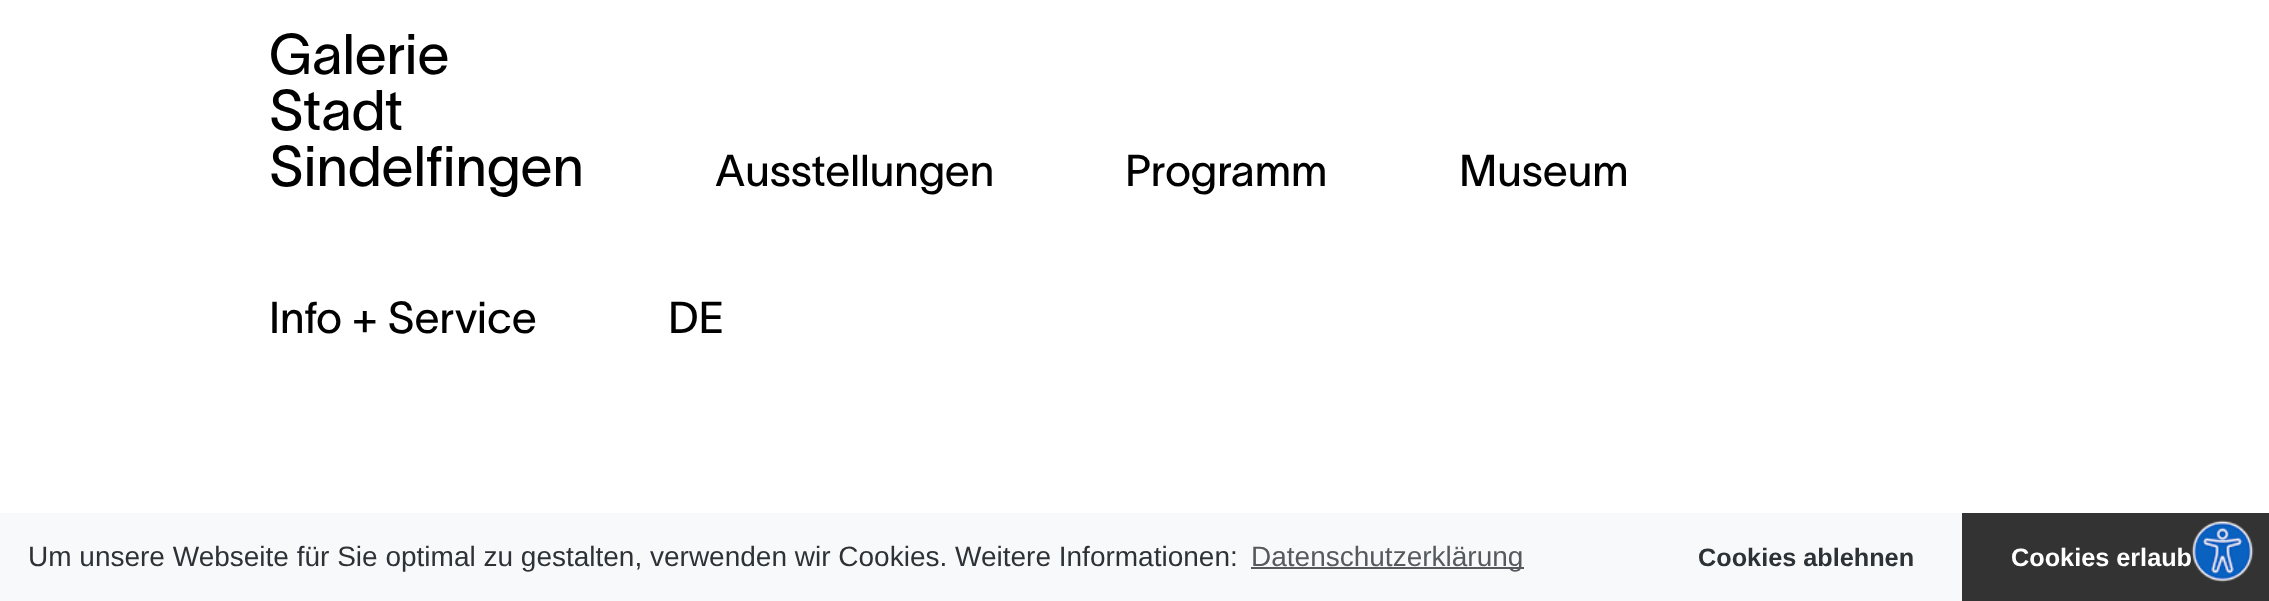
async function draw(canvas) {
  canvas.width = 2269;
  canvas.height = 601;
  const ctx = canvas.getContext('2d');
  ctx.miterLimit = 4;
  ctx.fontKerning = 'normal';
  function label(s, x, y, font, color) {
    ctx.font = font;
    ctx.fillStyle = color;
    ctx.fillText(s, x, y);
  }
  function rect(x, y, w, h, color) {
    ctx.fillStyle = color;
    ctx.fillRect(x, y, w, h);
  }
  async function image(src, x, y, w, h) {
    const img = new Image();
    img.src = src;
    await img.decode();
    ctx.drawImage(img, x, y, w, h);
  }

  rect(0, 0, 2269, 601, '#fff');
  label('Galerie', 269, 74, '300 56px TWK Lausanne', '#000');
  label('Stadt', 269, 130, '300 56px TWK Lausanne', '#000');
  label('Sindelfingen', 269, 186, '300 56px TWK Lausanne', '#000');
  label('Ausstellungen', 715, 186, '300 43.75px TWK Lausanne', '#000');
  label('Programm', 1125, 186, '300 43.75px TWK Lausanne', '#000');
  label('Museum', 1459, 186, '300 43.75px TWK Lausanne', '#000');
  label('Info + Service', 269, 333, '300 43.75px TWK Lausanne', '#000');
  label('DE', 668, 333, '300 43.75px TWK Lausanne', '#000');
  rect(0, 513, 1962, 88, '#f8f9fa');
  label('Um unsere Webseite für Sie optimal zu gestalten, verwenden wir Cookies. Weitere Informationen:', 28, 566, '28px Liberation Sans', '#2d3237');
  rect(1251, 567, 273, 2, '#565a5e');
  label('Datenschutzerklärung', 1251, 566, '28px Liberation Sans', '#565a5e');
  label('Cookies ablehnen', 1698, 566, 'bold 25.25px Liberation Sans', '#2d3237');
  rect(1962, 513, 307, 88, '#333');
  label('Cookies erlaub', 2011, 566, 'bold 25.25px Liberation Sans', '#fff');
  await image('assets/img1.png', 2191, 520, 63, 63);
}

draw(document.querySelector('canvas'));
